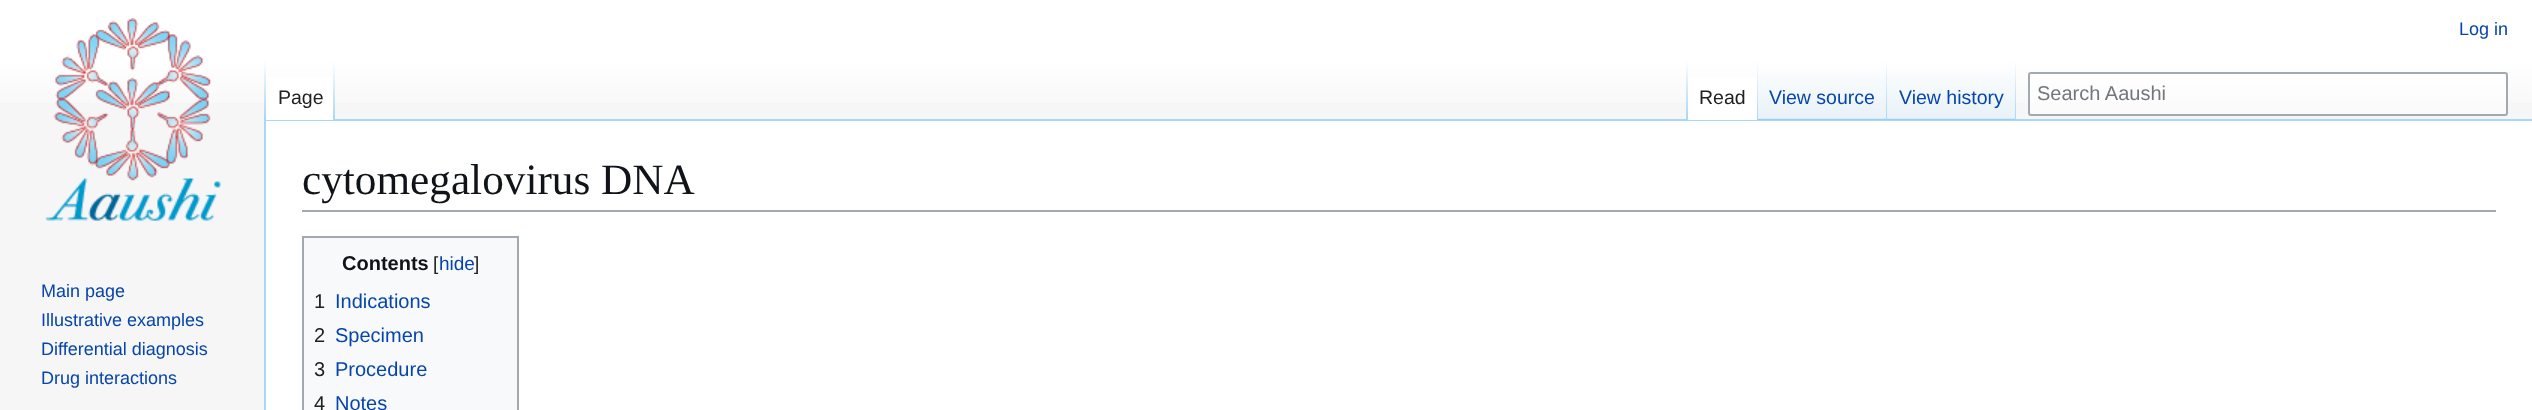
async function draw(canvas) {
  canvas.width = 2532;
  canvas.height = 410;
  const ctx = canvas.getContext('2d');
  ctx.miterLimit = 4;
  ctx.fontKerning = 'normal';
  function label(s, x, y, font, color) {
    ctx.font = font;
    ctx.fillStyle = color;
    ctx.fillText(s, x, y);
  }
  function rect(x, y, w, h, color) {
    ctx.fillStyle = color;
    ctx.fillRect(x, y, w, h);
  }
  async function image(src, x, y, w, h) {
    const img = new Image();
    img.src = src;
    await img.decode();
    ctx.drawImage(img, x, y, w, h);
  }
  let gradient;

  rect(0, 0, 2532, 410, '#f6f6f6');
  gradient = ctx.createLinearGradient(1266, 0, 1266, 120);
  gradient.addColorStop(0.5, '#fff');
  gradient.addColorStop(1, '#f6f6f6');
  ctx.fillStyle = gradient;
  ctx.fillRect(0, 0, 2532, 103);
  label('Log in', 2459, 35, '18px Liberation Sans', '#0645ad');
  rect(264, 119, 2268, 2, '#a7d7f9');
  rect(264, 119, 2, 291, '#a7d7f9');
  gradient = ctx.createLinearGradient(265, 60, 265, 120);
  gradient.addColorStop(0, '#a7d7f900');
  gradient.addColorStop(1, '#a7d7f9');
  ctx.fillStyle = gradient;
  ctx.fillRect(264, 60, 2, 60);
  rect(266, 77, 67, 43, '#fff');
  gradient = ctx.createLinearGradient(334, 60, 334, 120);
  gradient.addColorStop(0, '#fff');
  gradient.addColorStop(1, '#a7d7f9');
  ctx.fillStyle = gradient;
  ctx.fillRect(333, 60, 2, 60);
  label('Page', 278, 104, '19.5px Liberation Sans', '#202122');
  gradient = ctx.createLinearGradient(1687, 60, 1687, 120);
  gradient.addColorStop(0, '#a7d7f900');
  gradient.addColorStop(1, '#a7d7f9');
  ctx.fillStyle = gradient;
  ctx.fillRect(1686, 60, 2, 60);
  rect(1688, 77, 69, 43, '#fff');
  gradient = ctx.createLinearGradient(1757, 60, 1757, 120);
  gradient.addColorStop(0, '#fff');
  gradient.addColorStop(1, '#a7d7f9');
  ctx.fillStyle = gradient;
  ctx.fillRect(1757, 60, 1, 60);
  label('Read', 1699, 104, '19.5px Liberation Sans', '#202122');
  gradient = ctx.createLinearGradient(1823, 120, 1823, 60);
  gradient.addColorStop(0, '#77c1f6');
  gradient.addColorStop(0.03, '#e8f2f8');
  gradient.addColorStop(1, '#fff');
  ctx.fillStyle = gradient;
  ctx.fillRect(1758, 69, 129, 51);
  gradient = ctx.createLinearGradient(1886, 60, 1886, 120);
  gradient.addColorStop(0, '#a7d7f900');
  gradient.addColorStop(1, '#a7d7f9');
  ctx.fillStyle = gradient;
  ctx.fillRect(1886, 60, 1, 60);
  label('View source', 1769, 104, '19.5px Liberation Sans', '#0645ad');
  gradient = ctx.createLinearGradient(1952, 120, 1952, 60);
  gradient.addColorStop(0, '#77c1f6');
  gradient.addColorStop(0.03, '#e8f2f8');
  gradient.addColorStop(1, '#fff');
  ctx.fillStyle = gradient;
  ctx.fillRect(1887, 69, 129, 51);
  gradient = ctx.createLinearGradient(2015, 60, 2015, 120);
  gradient.addColorStop(0, '#a7d7f900');
  gradient.addColorStop(1, '#a7d7f9');
  ctx.fillStyle = gradient;
  ctx.fillRect(2015, 60, 1, 60);
  label('View history', 1899, 104, '19.5px Liberation Sans', '#0645ad');
  ctx.fillStyle = '#ffffff80';
  ctx.beginPath();
  ctx.roundRect(2029, 73, 478, 42, 2);
  ctx.fill();
  ctx.strokeStyle = '#a2a9b1';
  ctx.lineWidth = 2;
  ctx.stroke();
  label('Search Aaushi', 2037, 100, '20px Liberation Sans', '#72777d');
  await image('assets/img1.png', 45, 18, 176, 203);
  label('Main page', 41, 297, '18px Liberation Sans', '#0645ad');
  label('Illustrative examples', 41, 326, '18px Liberation Sans', '#0645ad');
  label('Differential diagnosis', 41, 355, '18px Liberation Sans', '#0645ad');
  label('Drug interactions', 41, 384, '18px Liberation Sans', '#0645ad');
  rect(266, 121, 2266, 289, '#fff');
  rect(302, 210, 2194, 2, '#a2a9b1');
  label('cytomegalovirus DNA', 302, 194, '43.25px Liberation Serif', '#101418');
  ctx.fillStyle = '#f8f9fa';
  ctx.beginPath();
  ctx.rect(303, 237, 215, 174);
  ctx.fill();
  ctx.stroke();
  label('Contents', 342, 270, 'bold 20px Liberation Sans', '#101418');
  label('[', 433, 270, '19px Liberation Sans', '#202122');
  label('hide', 439, 270, '19px Liberation Sans', '#0645ad');
  label(']', 474, 270, '19px Liberation Sans', '#202122');
  label('1', 314, 308, '20px Liberation Sans', '#202122');
  label('Indications', 335, 308, '20px Liberation Sans', '#0645ad');
  label('2', 314, 342, '20px Liberation Sans', '#202122');
  label('Specimen', 335, 342, '20px Liberation Sans', '#0645ad');
  label('3', 314, 376, '20px Liberation Sans', '#202122');
  label('Procedure', 335, 376, '20px Liberation Sans', '#0645ad');
  label('4', 314, 410, '20px Liberation Sans', '#202122');
  label('Notes', 335, 410, '20px Liberation Sans', '#0645ad');
}

draw(document.querySelector('canvas'));
